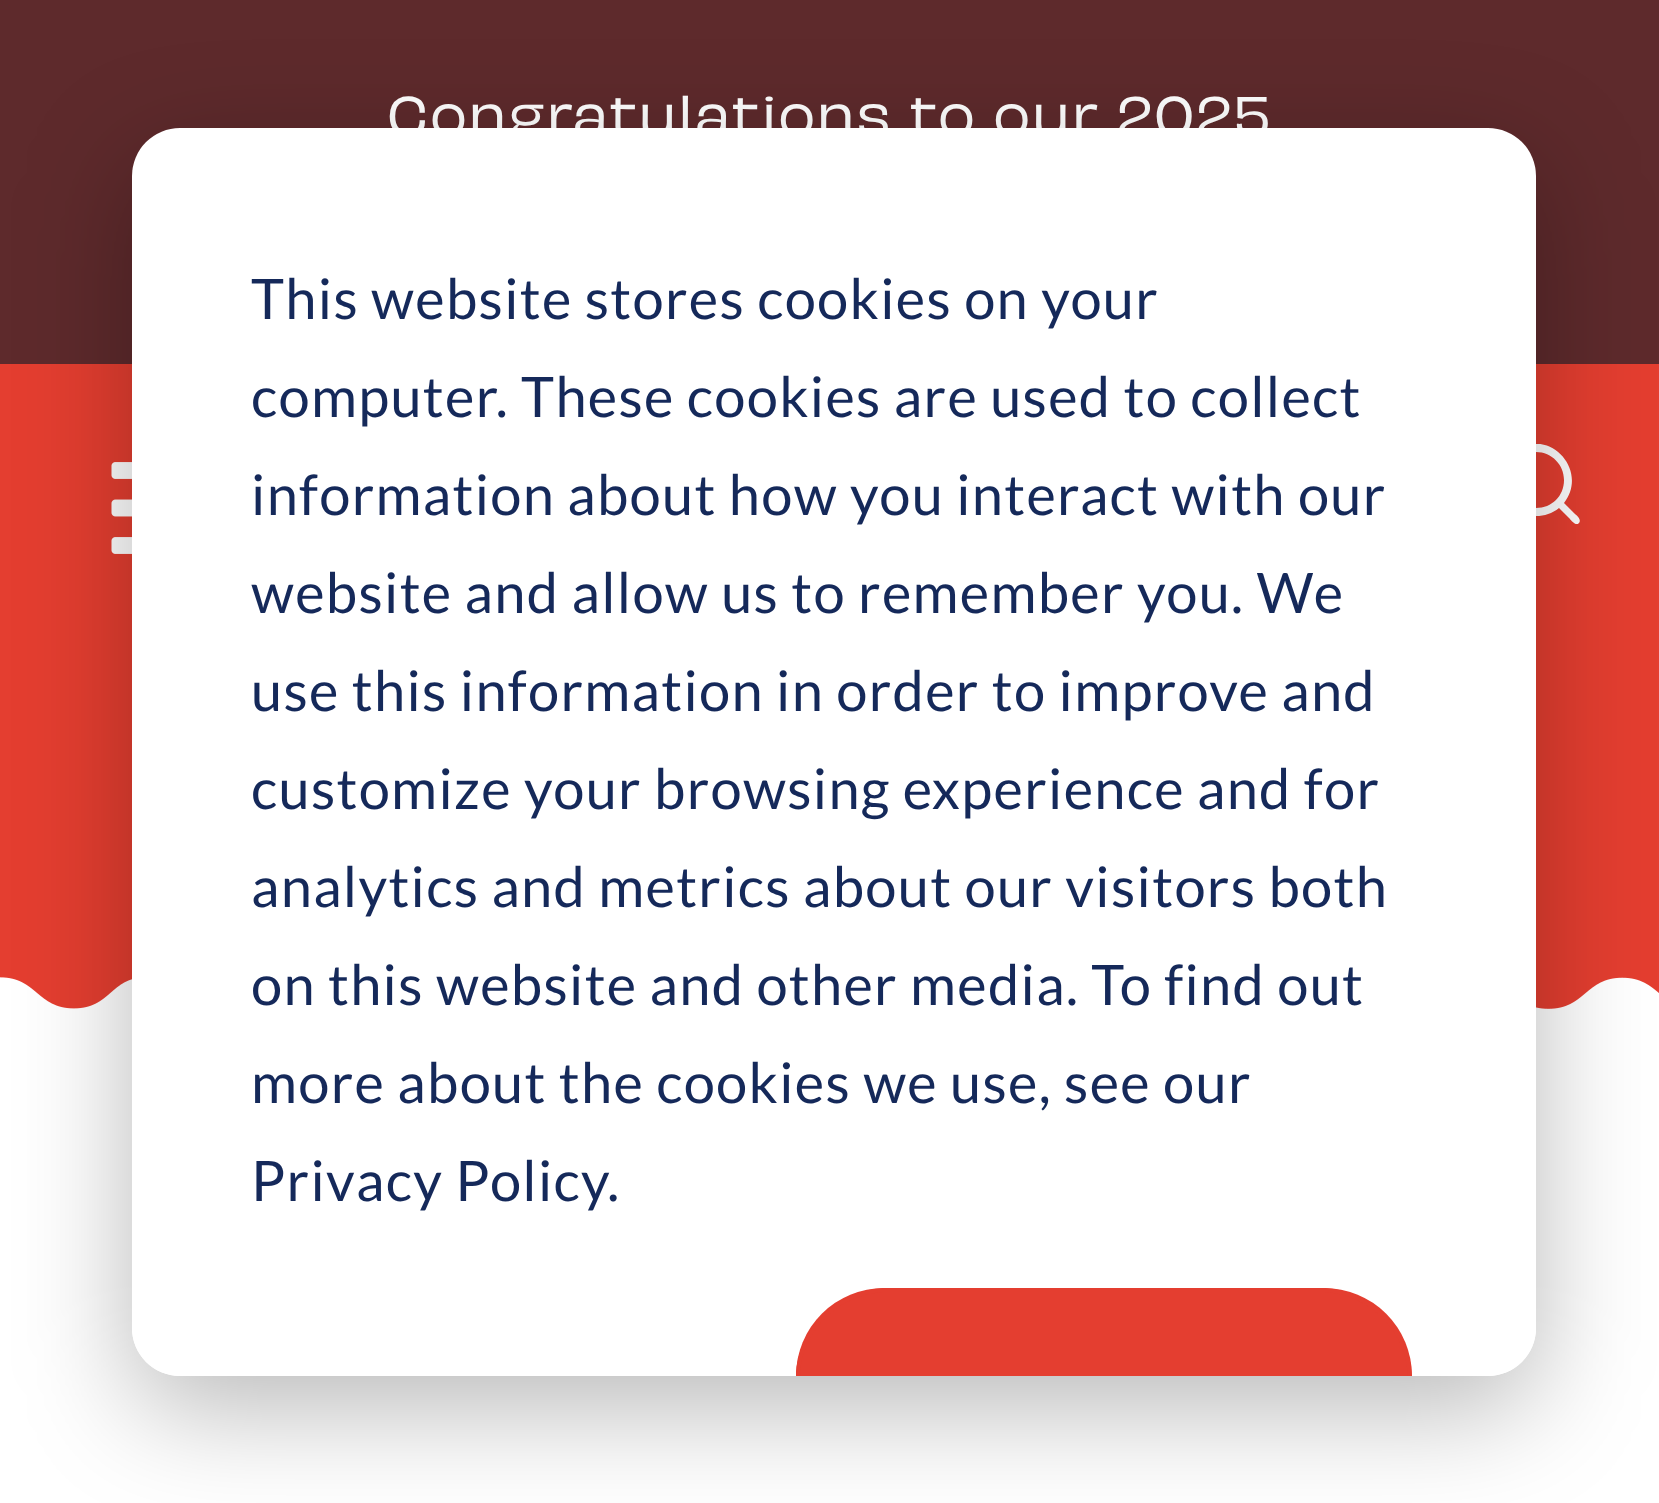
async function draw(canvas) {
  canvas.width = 1659;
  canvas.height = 1503;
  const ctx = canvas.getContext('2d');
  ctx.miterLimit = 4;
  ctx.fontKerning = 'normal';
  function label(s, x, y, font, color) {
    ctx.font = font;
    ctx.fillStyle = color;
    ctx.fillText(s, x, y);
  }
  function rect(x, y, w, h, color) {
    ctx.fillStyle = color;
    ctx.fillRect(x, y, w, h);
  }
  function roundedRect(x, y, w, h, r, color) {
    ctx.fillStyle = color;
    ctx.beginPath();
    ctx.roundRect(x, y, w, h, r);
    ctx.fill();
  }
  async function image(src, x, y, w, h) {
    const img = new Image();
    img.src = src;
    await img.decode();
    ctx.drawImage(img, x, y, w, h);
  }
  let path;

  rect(0, 0, 1659, 1503, '#fff');
  rect(0, 0, 1659, 364, '#5e2a2c');
  ctx.letterSpacing = '1.3px';
  label('Congratulations to our 2025', 387, 136, '600 52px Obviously', '#fff');
  rect(0, 364, 1659, 560, '#e43e30');
  await image('assets/img1.png', 111, 462, 21, 92);
  ctx.save();
  ctx.beginPath();
  ctx.rect(1500, 444, 80, 80);
  ctx.clip();
  ctx.fillStyle = '#fff';
  path = new Path2D('M1536 452C1521 452 1508 465 1508 480C1508 496 1521 508 1536 508C1552 508 1564 496 1564 480C1564 465 1552 452 1536 452ZM1564 503L1574 513C1576 515 1582 519 1579 523C1576 527 1571 520 1569 518L1559 508C1542 522 1516 517 1505 499C1499 489 1498 476 1503 466C1506 458 1512 452 1519 448C1553 430 1588 472 1564 503Z');
  ctx.fill(path);
  ctx.restore();
  await image('assets/img2.png', 0, 924, 1659, 85);
  ctx.save();
  path = new Path2D('M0 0H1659V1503H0ZM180 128H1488C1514.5 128 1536 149.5 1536 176V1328C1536 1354.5 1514.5 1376 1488 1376H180C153.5 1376 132 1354.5 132 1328V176C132 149.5 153.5 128 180 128Z');
  ctx.clip(path, 'evenodd');
  ctx.fillStyle = '#00000047';
  ctx.filter = 'blur(56px)';
  ctx.beginPath();
  ctx.roundRect(132, 160, 1404, 1248, 48);
  ctx.fill();
  ctx.filter = 'none';
  ctx.restore();
  roundedRect(132, 128, 1404, 1248, 48, '#fff');
  label('This website stores cookies on your', 251, 319, '56px Lato', '#15295a');
  label('computer. These cookies are used to collect', 251, 417, '56px Lato', '#15295a');
  label('information about how you interact with our', 251, 515, '56px Lato', '#15295a');
  label('website and allow us to remember you. We', 251, 613, '56px Lato', '#15295a');
  label('use this information in order to improve and', 251, 711, '56px Lato', '#15295a');
  label('customize your browsing experience and for', 251, 809, '56px Lato', '#15295a');
  label('analytics and metrics about our visitors both', 251, 907, '56px Lato', '#15295a');
  label('on this website and other media. To find out', 251, 1005, '56px Lato', '#15295a');
  label('more about the cookies we use, see our', 251, 1103, '56px Lato', '#15295a');
  label('Privacy Policy.', 251, 1201, '56px Lato', '#15295a');
  ctx.fillStyle = '#e43e30';
  ctx.beginPath();
  ctx.roundRect(796, 1288, 616, 88, [92, 92, 0, 0]);
  ctx.fill();
  path = new Path2D('M888 1288C839 1288 798 1327 796 1376H800C802 1329 841 1292 888 1292H1320C1367 1292 1406 1329 1408 1376H1412C1410 1327 1369 1288 1320 1288Z');
  ctx.fill(path);
}

draw(document.querySelector('canvas'));
